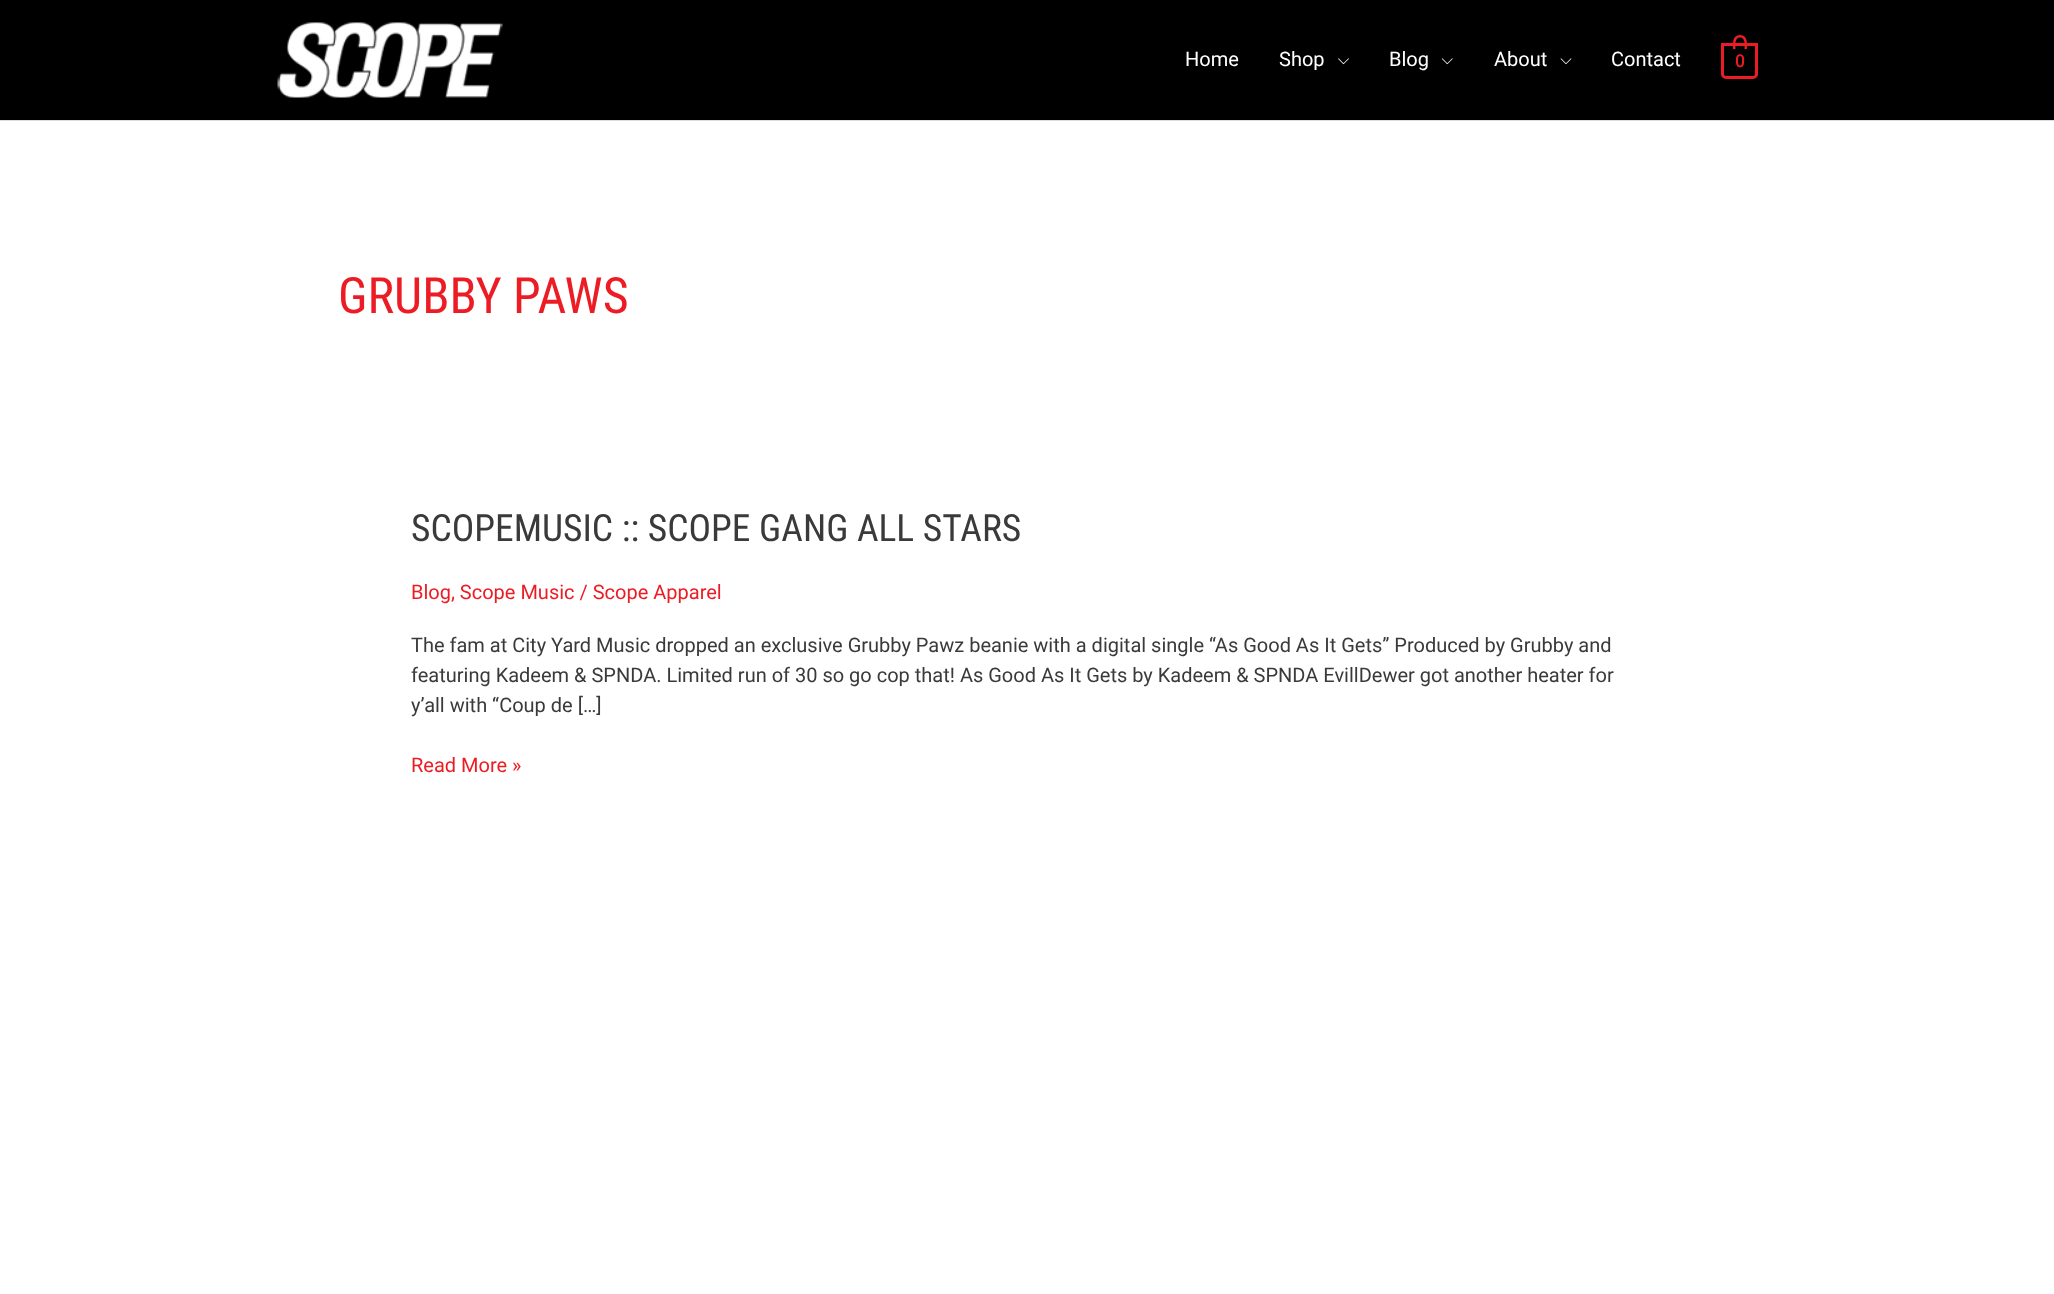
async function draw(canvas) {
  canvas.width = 2054;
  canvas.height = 1294;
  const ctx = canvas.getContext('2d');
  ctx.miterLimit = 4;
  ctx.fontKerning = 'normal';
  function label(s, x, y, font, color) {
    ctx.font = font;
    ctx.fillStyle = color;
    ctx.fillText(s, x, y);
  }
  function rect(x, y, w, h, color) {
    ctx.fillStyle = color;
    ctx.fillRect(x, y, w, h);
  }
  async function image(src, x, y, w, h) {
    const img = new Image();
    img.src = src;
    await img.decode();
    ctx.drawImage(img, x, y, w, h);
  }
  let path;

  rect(0, 0, 2054, 1294, '#fff');
  rect(0, 0, 2054, 120, '#000');
  rect(0, 120, 2054, 1, '#ddd');
  await image('assets/img1.png', 277, 22, 226, 76);
  label('Home', 1185, 66, '20px Roboto', '#fff');
  label('Shop', 1279, 66, '20px Roboto', '#fff');
  await image('assets/img2.png', 1338, 58, 11, 7);
  label('Blog', 1389, 66, '20px Roboto', '#fff');
  await image('assets/img3.png', 1441, 58, 12, 7);
  label('About', 1494, 66, '20px Roboto', '#fff');
  await image('assets/img4.png', 1560, 58, 12, 7);
  label('Contact', 1611, 66, '20px Roboto', '#fff');
  ctx.beginPath();
  ctx.roundRect(1722.5, 44.5, 34, 33, [0, 0, 3.5, 3.5]);
  ctx.strokeStyle = '#ed1c24';
  ctx.lineWidth = 3;
  ctx.stroke();
  ctx.fillStyle = '#ed1c24';
  path = new Path2D('M1740 35C1748 35 1747 43.5 1747 49H1733C1733 43.5 1732 35 1740 35ZM1740 37.5C1745.5 37.5 1744.5 45 1744.5 49H1735.5C1735.5 45 1734.5 37.5 1740 37.5Z');
  ctx.fill(path, 'evenodd');
  label('0', 1735, 67, 'bold 17px Roboto', '#ed1c24');
  label('GRUBBY PAWS', 338, 313, '50px Roboto Condensed', '#ed1c24');
  label('SCOPEMUSIC :: SCOPE GANG ALL STARS', 411, 541, '37.5px Roboto Condensed', '#3a3a3a');
  label('Blog, Scope Music / Scope Apparel', 411, 599, '20px Roboto', '#ed1c24');
  label('The fam at City Yard Music dropped an exclusive Grubby Pawz beanie with a digital single “As Good As It Gets” Produced by Grubby and', 411, 652, '20px Roboto', '#3a3a3a');
  label('featuring Kadeem & SPNDA. Limited run of 30 so go cop that! As Good As It Gets by Kadeem & SPNDA EvillDewer got another heater for', 411, 682, '20px Roboto', '#3a3a3a');
  label('y’all with “Coup de […]', 411, 712, '20px Roboto', '#3a3a3a');
  label('Read More »', 411, 772, '20px Roboto', '#ed1c24');
}

draw(document.querySelector('canvas'));
